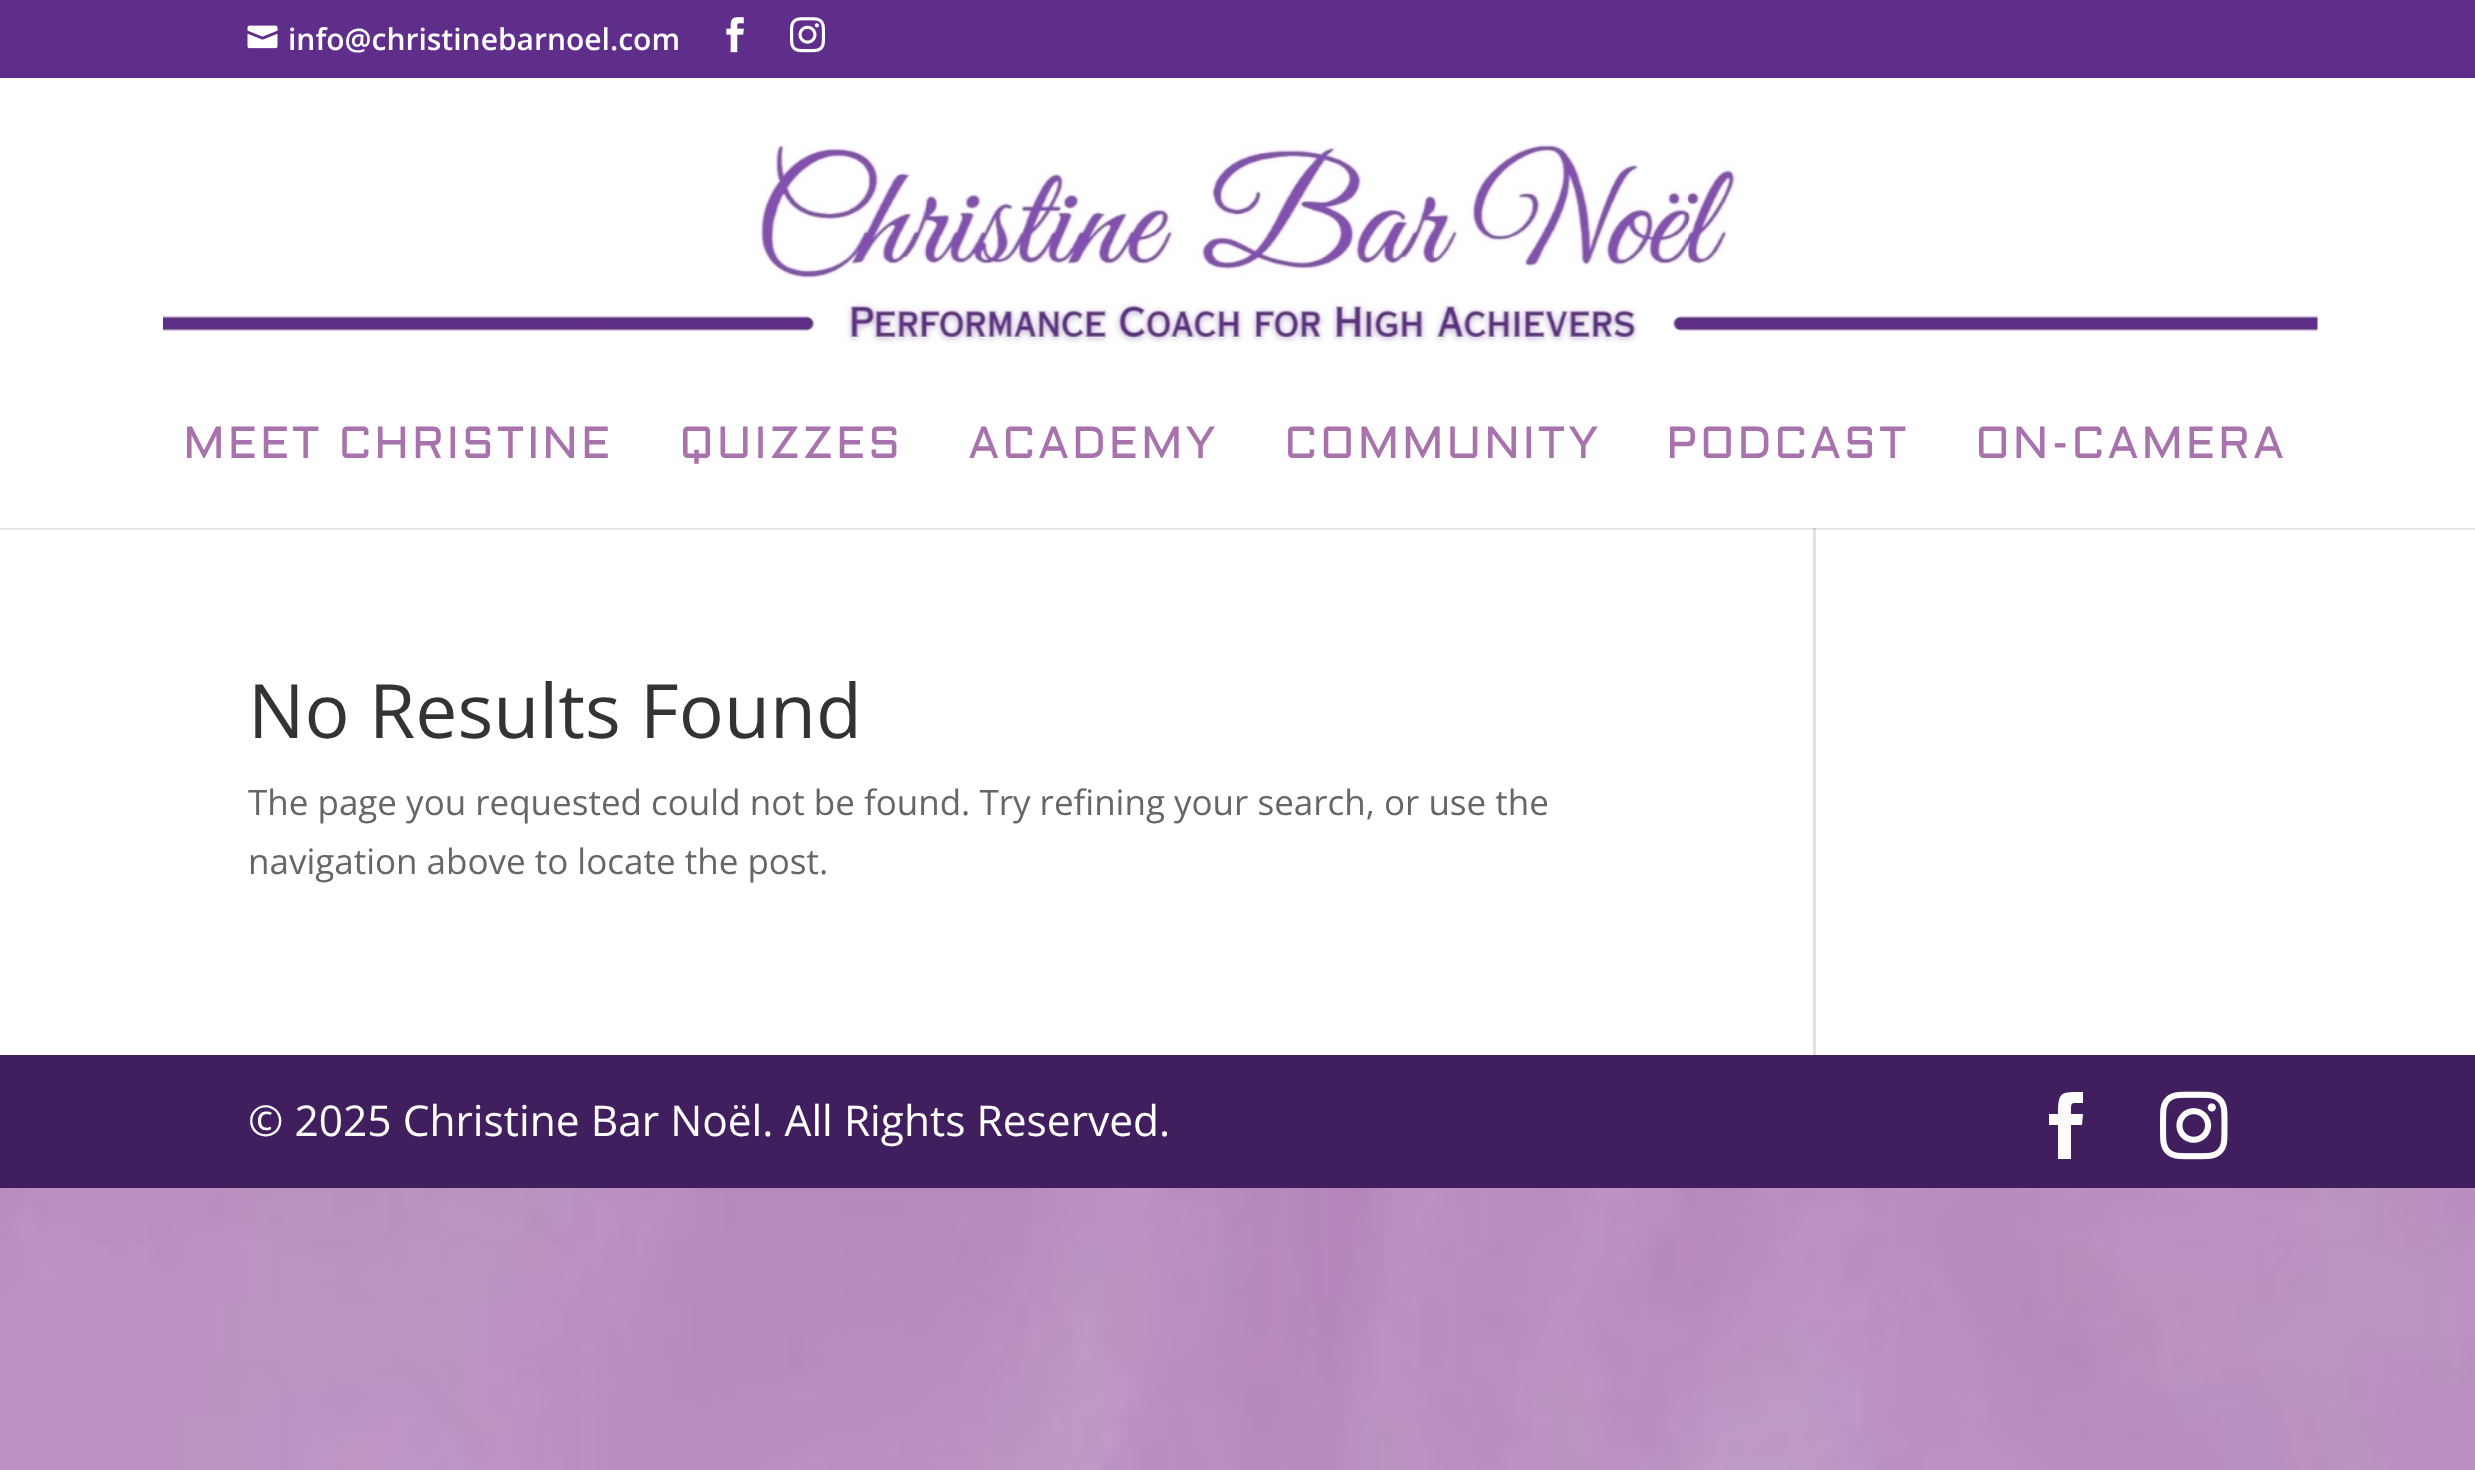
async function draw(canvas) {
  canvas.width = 2475;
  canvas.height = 1470;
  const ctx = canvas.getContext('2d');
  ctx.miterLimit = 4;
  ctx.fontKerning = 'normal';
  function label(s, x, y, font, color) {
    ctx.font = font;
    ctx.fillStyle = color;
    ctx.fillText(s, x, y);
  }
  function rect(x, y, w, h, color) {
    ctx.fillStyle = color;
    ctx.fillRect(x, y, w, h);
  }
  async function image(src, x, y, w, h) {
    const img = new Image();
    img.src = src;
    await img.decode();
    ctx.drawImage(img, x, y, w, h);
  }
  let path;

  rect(0, 0, 2475, 1470, '#fff');
  await image('assets/img1.png', 0, 1188, 2475, 282);
  rect(0, 0, 2475, 78, '#5f2e8b');
  await image('assets/img2.png', 247, 25, 31, 24);
  label('info@christinebarnoel.com', 288, 50, '600 30px Open Sans', '#fff');
  await image('assets/img3.png', 726, 17, 18, 36);
  await image('assets/img4.png', 790, 17, 35, 36);
  rect(1813, 528, 3, 527, '#e2e2e2');
  rect(0, 528, 2475, 2, '#0000001a');
  await image('assets/img5.png', 163, 144, 2155, 200);
  ctx.letterSpacing = '2.5px';
  label('MEET CHRISTINE', 183, 458, '45px Aldrich', '#a872ad');
  label('QUIZZES', 679, 458, '45px Aldrich', '#a872ad');
  label('ACADEMY', 968, 458, '45px Aldrich', '#a872ad');
  label('COMMUNITY', 1284, 458, '45px Aldrich', '#a872ad');
  label('PODCAST', 1666, 458, '45px Aldrich', '#a872ad');
  label('ON-CAMERA', 1975, 458, '45px Aldrich', '#a872ad');
  ctx.letterSpacing = '0px';
  label('No Results Found', 248, 738, '75px Open Sans', '#333');
  label('The page you requested could not be found. Try refining your search, or use the', 248, 815, '35px Open Sans', '#666');
  label('navigation above to locate the post.', 248, 874, '35px Open Sans', '#666');
  rect(0, 1055, 2475, 133, '#411f5f');
  label('© 2025 Christine Bar Noël. All Rights Reserved.', 248, 1136, '42.5px Open Sans', '#fff');
  ctx.fillStyle = '#fcfcfc';
  path = new Path2D('M2058 1159H2071V1125H2082L2083 1114H2071C2071 1101 2070 1103 2083 1103V1092C2061 1092 2058 1091 2058 1114H2049V1125H2058Z');
  ctx.fill(path);
  await image('assets/img6.png', 2160, 1091, 68, 69);
}

draw(document.querySelector('canvas'));
